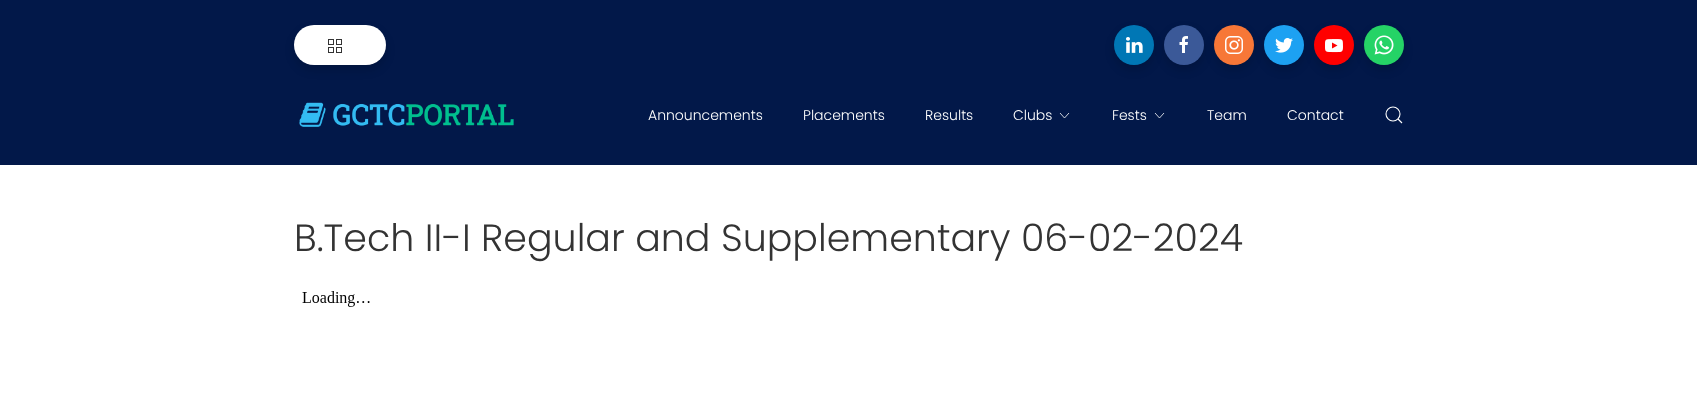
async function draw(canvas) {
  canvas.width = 1697;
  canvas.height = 408;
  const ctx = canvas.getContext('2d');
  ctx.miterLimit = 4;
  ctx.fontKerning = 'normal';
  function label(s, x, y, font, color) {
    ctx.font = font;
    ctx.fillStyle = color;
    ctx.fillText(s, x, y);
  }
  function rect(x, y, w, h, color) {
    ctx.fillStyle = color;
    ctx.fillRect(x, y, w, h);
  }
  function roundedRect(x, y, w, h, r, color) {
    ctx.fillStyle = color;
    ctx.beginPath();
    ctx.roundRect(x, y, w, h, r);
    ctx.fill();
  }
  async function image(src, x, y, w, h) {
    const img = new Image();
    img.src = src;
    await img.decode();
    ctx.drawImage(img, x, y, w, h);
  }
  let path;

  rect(0, 0, 1697, 408, '#fff');
  rect(0, 0, 1697, 165, '#021849');
  ctx.fillStyle = '#00000026';
  ctx.filter = 'blur(5px)';
  ctx.beginPath();
  ctx.roundRect(294, 30, 92, 40, 20);
  ctx.fill();
  ctx.filter = 'none';
  roundedRect(294, 25, 92, 40, 20, '#fff');
  await image('assets/img1.png', 328, 39, 14, 14);
  ctx.fillStyle = '#00000026';
  ctx.filter = 'blur(5px)';
  ctx.beginPath();
  ctx.roundRect(1114, 30, 40, 40, 20);
  ctx.fill();
  ctx.filter = 'none';
  ctx.fillStyle = '#0077b5';
  ctx.beginPath();
  ctx.arc(1134, 45, 20, 0, 2 * Math.PI);
  ctx.fill();
  await image('assets/img2.png', 1126, 37, 17, 16);
  ctx.fillStyle = '#00000026';
  ctx.filter = 'blur(5px)';
  ctx.beginPath();
  ctx.roundRect(1164, 30, 40, 40, 20);
  ctx.fill();
  ctx.filter = 'none';
  ctx.fillStyle = '#3b5998';
  ctx.beginPath();
  ctx.arc(1184, 45, 20, 0, 2 * Math.PI);
  ctx.fill();
  await image('assets/img3.png', 1179, 36, 9, 17);
  ctx.fillStyle = '#00000026';
  ctx.filter = 'blur(5px)';
  ctx.beginPath();
  ctx.roundRect(1214, 30, 40, 40, 20);
  ctx.fill();
  ctx.filter = 'none';
  ctx.fillStyle = '#f77737';
  ctx.beginPath();
  ctx.arc(1234, 45, 20, 0, 2 * Math.PI);
  ctx.fill();
  await image('assets/img4.png', 1225, 36, 18, 18);
  ctx.fillStyle = '#00000026';
  ctx.filter = 'blur(5px)';
  ctx.beginPath();
  ctx.roundRect(1264, 30, 40, 40, 20);
  ctx.fill();
  ctx.filter = 'none';
  ctx.fillStyle = '#1da1f2';
  ctx.beginPath();
  ctx.arc(1284, 45, 20, 0, 2 * Math.PI);
  ctx.fill();
  await image('assets/img5.png', 1275, 38, 18, 15);
  ctx.fillStyle = '#00000026';
  ctx.filter = 'blur(5px)';
  ctx.beginPath();
  ctx.roundRect(1314, 30, 40, 40, 20);
  ctx.fill();
  ctx.filter = 'none';
  ctx.fillStyle = '#f00';
  ctx.beginPath();
  ctx.arc(1334, 45, 20, 0, 2 * Math.PI);
  ctx.fill();
  await image('assets/img6.png', 1325, 39, 18, 14);
  ctx.fillStyle = '#00000026';
  ctx.filter = 'blur(5px)';
  ctx.beginPath();
  ctx.roundRect(1364, 30, 40, 40, 20);
  ctx.fill();
  ctx.filter = 'none';
  ctx.fillStyle = '#25d366';
  ctx.beginPath();
  ctx.arc(1384, 45, 20, 0, 2 * Math.PI);
  ctx.fill();
  await image('assets/img7.png', 1374, 35, 20, 20);
  await image('assets/img8.png', 299, 102, 215, 25);
  label('Announcements', 648, 120, '300 14px Poppins', '#fff');
  label('Placements', 803, 120, '300 14px Poppins', '#fff');
  label('Results', 925, 120, '300 14px Poppins', '#fff');
  label('Clubs', 1013, 120, '300 14px Poppins', '#fff');
  path = new Path2D('M1069 113L1064.5 118L1060 113');
  ctx.strokeStyle = '#fff';
  ctx.lineWidth = 0.8;
  ctx.stroke(path);
  label('Fests', 1112, 120, '300 14px Poppins', '#fff');
  path = new Path2D('M1164 113L1159.5 118L1155 113');
  ctx.stroke(path);
  label('Team', 1207, 120, '300 14px Poppins', '#fff');
  label('Contact', 1287, 120, '300 14px Poppins', '#fff');
  ctx.beginPath();
  ctx.arc(1393, 114, 7, 0, 2 * Math.PI);
  ctx.lineWidth = 1.1;
  ctx.stroke();
  path = new Path2D('M1398 119L1402 123Z');
  ctx.stroke(path);
  label('B.Tech II-I Regular and Supplementary 06-02-2024', 294, 251, '300 38px Poppins', '#333');
  await image('assets/img9.png', 302, 291, 68, 16);
}

draw(document.querySelector('canvas'));
